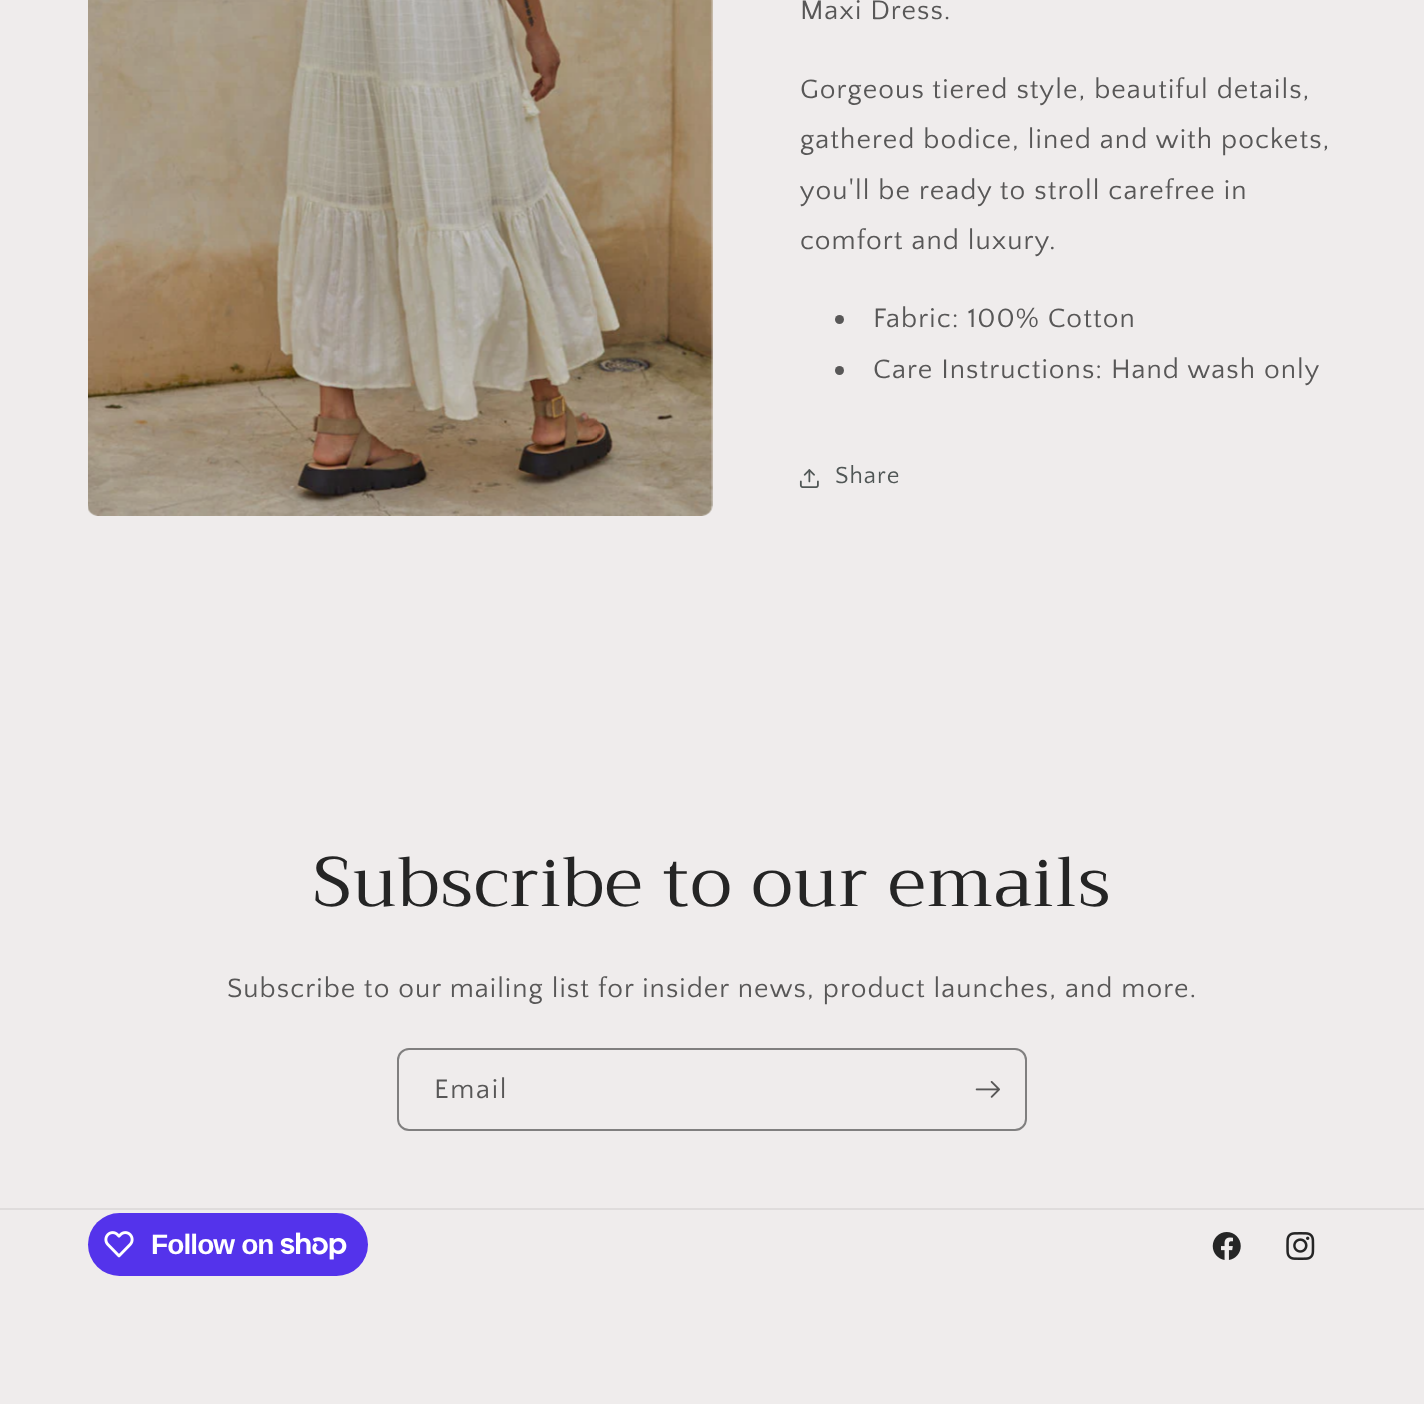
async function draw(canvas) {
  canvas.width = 1424;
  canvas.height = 1404;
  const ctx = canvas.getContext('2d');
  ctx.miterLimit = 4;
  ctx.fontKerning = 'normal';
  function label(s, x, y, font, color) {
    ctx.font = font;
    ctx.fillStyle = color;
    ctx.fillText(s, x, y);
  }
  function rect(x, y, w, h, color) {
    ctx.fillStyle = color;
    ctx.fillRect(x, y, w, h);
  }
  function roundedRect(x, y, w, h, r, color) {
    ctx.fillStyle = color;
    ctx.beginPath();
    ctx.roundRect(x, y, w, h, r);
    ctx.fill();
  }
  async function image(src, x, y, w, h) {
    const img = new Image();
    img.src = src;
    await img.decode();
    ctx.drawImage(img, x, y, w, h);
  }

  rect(0, 0, 1424, 1404, '#efecec');
  await image('assets/img1.png', 88, 0, 625, 516);
  ctx.letterSpacing = '1.05px';
  label('Maxi Dress.', 800, 19, '28px Quattrocento Sans', '#585757');
  label('Gorgeous tiered style, beautiful details,', 800, 98, '28px Quattrocento Sans', '#585757');
  label('gathered bodice, lined and with pockets,', 800, 148, '28px Quattrocento Sans', '#585757');
  label('you\'ll be ready to stroll carefree in', 800, 199, '28px Quattrocento Sans', '#585757');
  label('comfort and luxury.', 800, 249, '28px Quattrocento Sans', '#585757');
  ctx.beginPath();
  ctx.arc(839.5, 319.5, 4.5, 0, 2 * Math.PI);
  ctx.fill();
  label('Fabric: 100% Cotton', 873, 327, '28px Quattrocento Sans', '#585757');
  ctx.beginPath();
  ctx.arc(839.5, 370.5, 4.5, 0, 2 * Math.PI);
  ctx.fill();
  label('Care Instructions: Hand wash only', 873, 378, '28px Quattrocento Sans', '#585757');
  await image('assets/img2.png', 799, 469, 20, 19);
  label('Share', 835, 483, '24.5px Quattrocento Sans', '#505655');
  label('Subscribe to our emails', 313, 906, '70px Trirong', '#252525');
  label('Subscribe to our mailing list for insider news, product launches, and more.', 227, 997, '28px Quattrocento Sans', '#585757');
  ctx.beginPath();
  ctx.roundRect(398, 1049, 628, 81, 11);
  ctx.strokeStyle = '#807f7f';
  ctx.lineWidth = 2;
  ctx.stroke();
  ctx.letterSpacing = '1.75px';
  label('Email', 434, 1098, '28px Quattrocento Sans', '#585757');
  await image('assets/img3.png', 975, 1081, 25, 17);
  rect(0, 1208, 1424, 2, '#dfdcdc');
  roundedRect(88, 1213, 280, 63, 31.5, '#5433eb');
  await image('assets/img4.png', 104, 1231, 30, 27);
  ctx.letterSpacing = '-0.9px';
  label('Follow on', 151, 1254, 'bold 28px Liberation Sans', '#fff');
  await image('assets/img5.png', 280, 1232, 67, 28);
  await image('assets/img6.png', 1212, 1232, 29, 28);
  await image('assets/img7.png', 1286, 1232, 29, 28);
}

draw(document.querySelector('canvas'));
